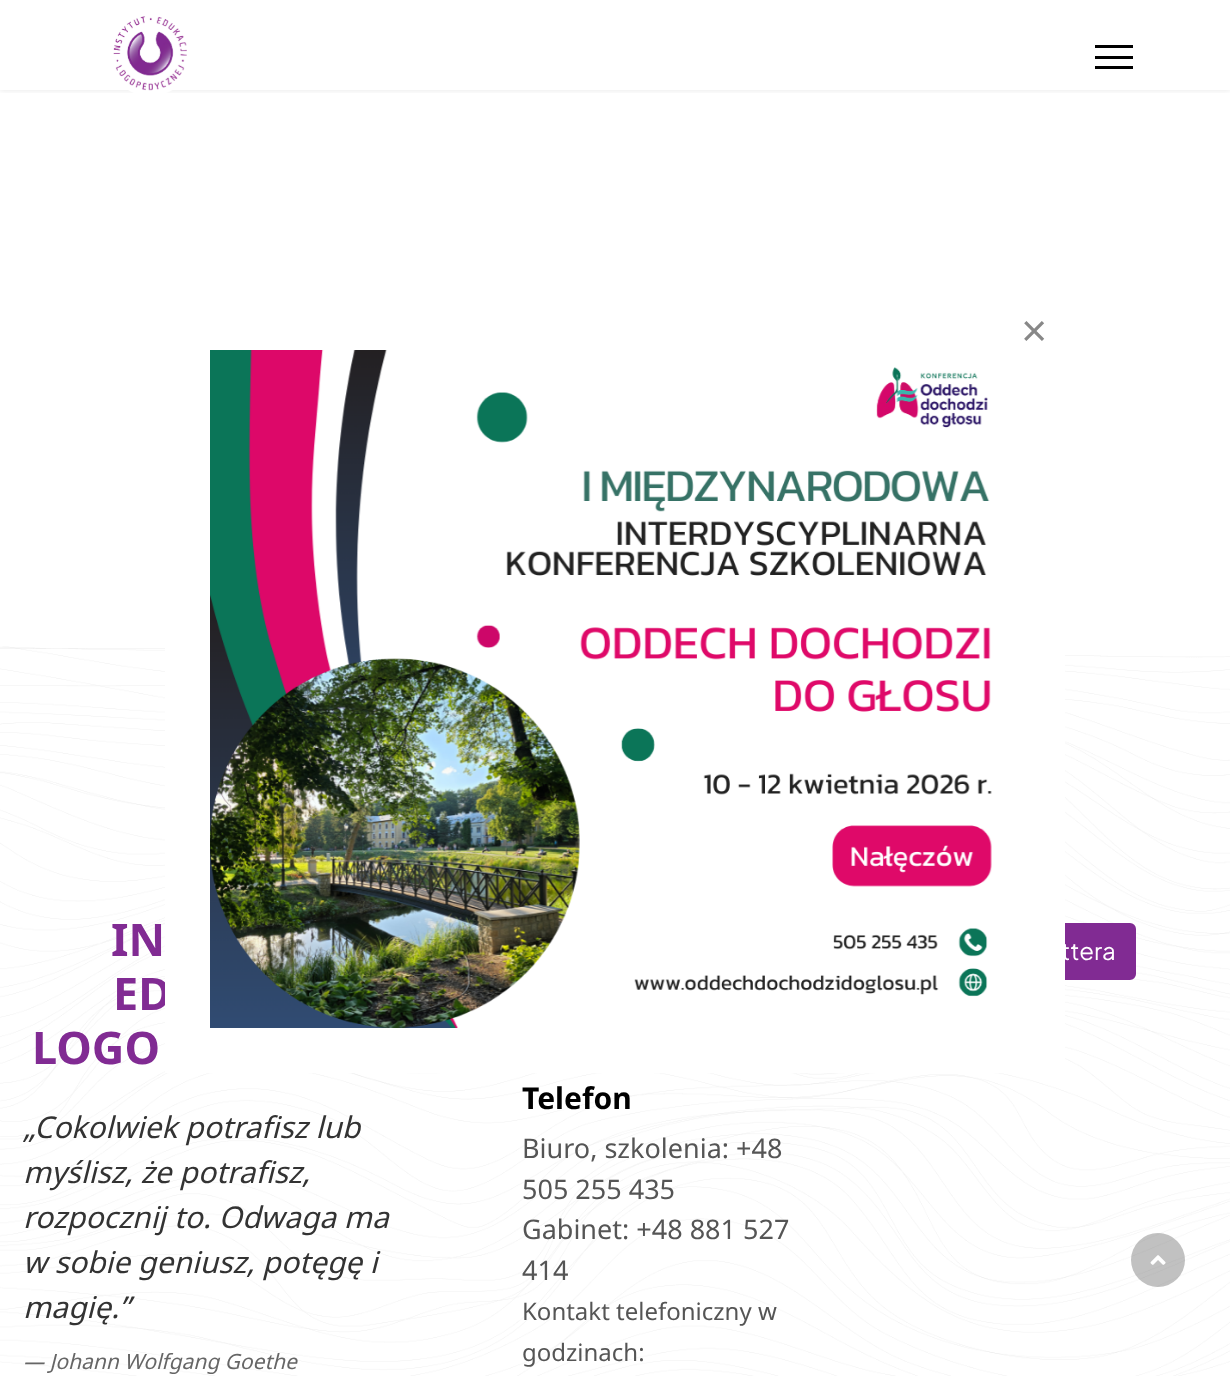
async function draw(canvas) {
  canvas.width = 1230;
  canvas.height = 1376;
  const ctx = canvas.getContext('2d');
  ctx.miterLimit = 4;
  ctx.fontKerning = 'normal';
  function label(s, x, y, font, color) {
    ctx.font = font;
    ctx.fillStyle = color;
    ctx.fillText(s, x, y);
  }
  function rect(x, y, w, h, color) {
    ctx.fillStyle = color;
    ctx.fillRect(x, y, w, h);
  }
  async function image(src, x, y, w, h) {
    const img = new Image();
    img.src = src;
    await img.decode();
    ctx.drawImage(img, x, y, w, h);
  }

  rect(0, 0, 1230, 1376, '#fff');
  ctx.save();
  ctx.beginPath();
  ctx.rect(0, 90, 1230, 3);
  ctx.clip();
  ctx.fillStyle = '#0000001a';
  ctx.filter = 'blur(3px)';
  ctx.beginPath();
  ctx.rect(0, 0, 1230, 90);
  ctx.fill();
  ctx.filter = 'none';
  ctx.restore();
  await image('assets/img1.png', 113, 16, 74, 77);
  rect(1095, 45, 38, 3, '#000');
  rect(1095, 56, 38, 3, '#000');
  rect(1095, 66, 38, 3, '#000');
  await image('assets/img3.png', 0, 646, 1230, 730);
  label('ED', 113, 1010, 'bold 45px Noto Sans', '#812b93');
  ctx.beginPath();
  ctx.roundRect(814, 924, 321, 55, 5);
  ctx.fill();
  ctx.strokeStyle = '#812b93';
  ctx.lineWidth = 2;
  ctx.stroke();
  rect(165, 646, 900, 427, '#fff');
  label('×', 1021, 346, '45px Liberation Sans', '#888');
  await image('assets/img2.png', 210, 350, 782, 678);
  label('IN', 111, 956, 'bold 45px Noto Sans', '#812b93');
  label('LOGO', 32, 1064, 'bold 45px Noto Sans', '#812b93');
  label('„Cokolwiek potrafisz lub', 23, 1138, 'italic 30px Noto Sans', '#333');
  label('myślisz, że potrafisz,', 23, 1183, 'italic 30px Noto Sans', '#333');
  label('rozpocznij to. Odwaga ma', 23, 1228, 'italic 30px Noto Sans', '#333');
  label('w sobie geniusz, potęgę i', 23, 1273, 'italic 30px Noto Sans', '#333');
  label('magię.”', 23, 1318, 'italic 30px Noto Sans', '#333');
  label('— Johann Wolfgang Goethe', 23, 1369, 'italic 21px Noto Sans', '#666');
  label('ttera', 1061, 960, '24px Plus Jakarta Sans', '#fff');
  label('Telefon', 522, 1109, 'bold 30px Noto Sans', '#000');
  label('Biuro, szkolenia: +48', 522, 1158, '27px Noto Sans', '#555');
  label('505 255 435', 522, 1199, '27px Noto Sans', '#555');
  label('Gabinet: +48 881 527', 522, 1239, '27px Noto Sans', '#555');
  label('414', 522, 1280, '27px Noto Sans', '#555');
  label('Kontakt telefoniczny w', 522, 1320, '24px Noto Sans', '#555');
  label('godzinach:', 522, 1361, '24px Noto Sans', '#555');
  ctx.fillStyle = '#64646466';
  ctx.beginPath();
  ctx.arc(1158, 1260, 27, 0, 2 * Math.PI);
  ctx.fill();
  await image('assets/img4.png', 1150, 1255, 16, 10);
}

draw(document.querySelector('canvas'));
